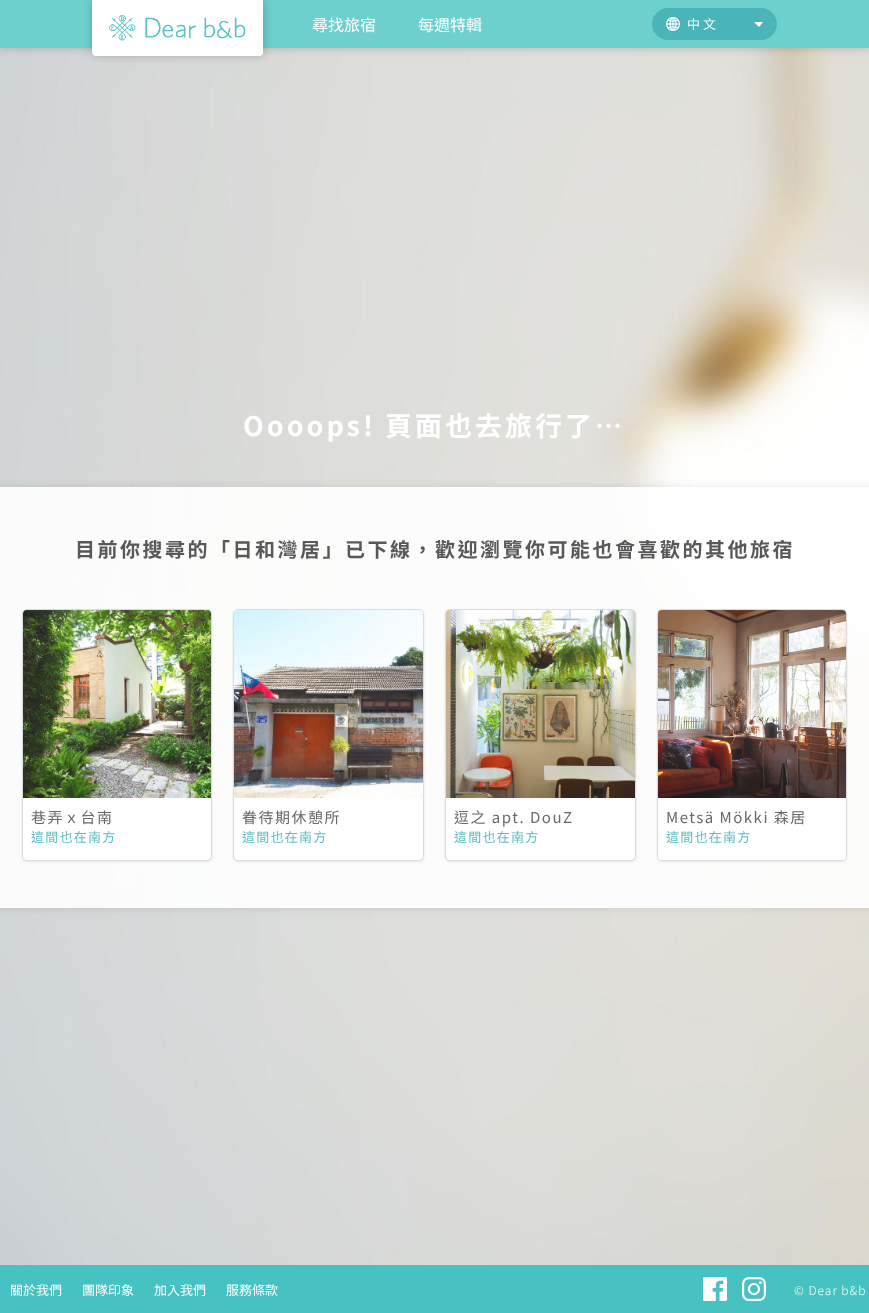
async function draw(canvas) {
  canvas.width = 869;
  canvas.height = 1313;
  const ctx = canvas.getContext('2d');
  ctx.miterLimit = 4;
  ctx.fontKerning = 'normal';
  function label(s, x, y, font, color) {
    ctx.font = font;
    ctx.fillStyle = color;
    ctx.fillText(s, x, y);
  }
  function rect(x, y, w, h, color) {
    ctx.fillStyle = color;
    ctx.fillRect(x, y, w, h);
  }
  function roundedRect(x, y, w, h, r, color) {
    ctx.fillStyle = color;
    ctx.beginPath();
    ctx.roundRect(x, y, w, h, r);
    ctx.fill();
  }
  async function image(src, x, y, w, h) {
    const img = new Image();
    img.src = src;
    await img.decode();
    ctx.drawImage(img, x, y, w, h);
  }
  let path;

  rect(0, 0, 869, 1313, '#46c2c2');
  await image('assets/img3.png', 0, 48, 869, 1217);
  ctx.fillStyle = '#00000033';
  ctx.filter = 'blur(5px)';
  ctx.beginPath();
  ctx.rect(0, 0, 869, 48);
  ctx.fill();
  ctx.filter = 'none';
  rect(0, 0, 869, 48, '#6dd0cd');
  ctx.fillStyle = '#00000033';
  ctx.filter = 'blur(5px)';
  ctx.beginPath();
  ctx.roundRect(92, 0, 172, 56, 4);
  ctx.fill();
  ctx.filter = 'none';
  await image('assets/img1.png', 92, 0, 171, 56);
  label('尋找旅宿', 312, 31, '16px Noto Sans TC', '#fff');
  label('每週特輯', 418, 31, '16px Noto Sans TC', '#fff');
  roundedRect(652, 8, 125, 32, 16, '#4ab5b9');
  await image('assets/img2.png', 666, 17, 14, 14);
  ctx.letterSpacing = '3px';
  label('中文', 687, 29, '13px Noto Sans TC', '#fff');
  path = new Path2D('M754 22H763L759 27Z');
  ctx.fill(path);
  label('Oooops! 頁面也去旅行了…', 243, 436, 'bold 27px Noto Sans TC', '#fff');
  ctx.save();
  path = new Path2D('M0 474H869V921H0ZM-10 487H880C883 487 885 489 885 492V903C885 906 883 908 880 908H-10C-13 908-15 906-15 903V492C-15 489-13 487-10 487Z');
  ctx.clip(path, 'evenodd');
  ctx.fillStyle = '#0000001a';
  ctx.filter = 'blur(4px)';
  ctx.beginPath();
  ctx.roundRect(-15, 487, 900, 421, 5);
  ctx.fill();
  ctx.filter = 'none';
  ctx.restore();
  rect(0, 487, 869, 421, '#ffffffe6');
  ctx.letterSpacing = '2.5px';
  label('目前你搜尋的「日和灣居」已下線，歡迎瀏覽你可能也會喜歡的其他旅宿', 75, 557, 'bold 20px Noto Sans TC', '#585858');
  ctx.fillStyle = '#1919191a';
  ctx.filter = 'blur(1px)';
  ctx.beginPath();
  ctx.roundRect(22, 610, 190, 252, 5);
  ctx.fill();
  ctx.filter = 'none';
  ctx.fillStyle = '#fff';
  ctx.beginPath();
  ctx.roundRect(22.5, 609.5, 189, 251, 4.5);
  ctx.fill();
  ctx.strokeStyle = '#dbdcdc';
  ctx.stroke();
  await image('assets/img4.png', 23, 610, 188, 188);
  ctx.letterSpacing = '1.5px';
  label('巷弄ｘ台南', 31, 823, '15px Noto Sans TC', '#686868');
  ctx.letterSpacing = '1.25px';
  label('這間也在南方', 31, 842, '13px Noto Sans TC', '#5cbcc0');
  ctx.fillStyle = '#1919191a';
  ctx.filter = 'blur(1px)';
  ctx.beginPath();
  ctx.roundRect(233, 610, 191, 252, 5);
  ctx.fill();
  ctx.filter = 'none';
  ctx.fillStyle = '#fff';
  ctx.beginPath();
  ctx.roundRect(233.5, 609.5, 190, 251, 4.5);
  ctx.fill();
  ctx.strokeStyle = '#dcdcdc';
  ctx.stroke();
  await image('assets/img5.png', 234, 610, 189, 188);
  ctx.letterSpacing = '1.5px';
  label('眷待期休憩所', 242, 823, '15px Noto Sans TC', '#686868');
  ctx.letterSpacing = '1.25px';
  label('這間也在南方', 242, 842, '13px Noto Sans TC', '#5cbcc0');
  ctx.fillStyle = '#1919191a';
  ctx.filter = 'blur(1px)';
  ctx.beginPath();
  ctx.roundRect(445, 610, 191, 252, 5);
  ctx.fill();
  ctx.filter = 'none';
  ctx.fillStyle = '#fff';
  ctx.beginPath();
  ctx.roundRect(445.5, 609.5, 190, 251, 4.5);
  ctx.fill();
  ctx.stroke();
  await image('assets/img6.png', 446, 610, 189, 188);
  ctx.letterSpacing = '1.5px';
  label('逗之 apt. DouZ', 454, 823, '15px Noto Sans TC', '#686868');
  ctx.letterSpacing = '1.25px';
  label('這間也在南方', 454, 842, '13px Noto Sans TC', '#5cbcc0');
  ctx.save();
  path = new Path2D('M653 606H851V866H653ZM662 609H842C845 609 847 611 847 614V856C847 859 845 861 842 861H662C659 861 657 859 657 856V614C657 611 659 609 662 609Z');
  ctx.clip(path, 'evenodd');
  ctx.fillStyle = '#00000017';
  ctx.filter = 'blur(1px)';
  ctx.beginPath();
  ctx.roundRect(657, 610, 190, 252, 5);
  ctx.fill();
  ctx.filter = 'none';
  ctx.restore();
  roundedRect(657, 609, 190, 252, 5, '#ffffffe6');
  ctx.beginPath();
  ctx.roundRect(657.5, 609.5, 189, 251, 4.5);
  ctx.strokeStyle = '#d8d8d8e6';
  ctx.stroke();
  await image('assets/img7.png', 658, 610, 188, 188);
  ctx.letterSpacing = '1.5px';
  label('Metsä Mökki 森居', 666, 823, '15px Noto Sans TC', '#686868');
  ctx.letterSpacing = '1.25px';
  label('這間也在南方', 666, 842, '13px Noto Sans TC', '#5cbcc0');
  ctx.letterSpacing = '0px';
  label('關於我們', 10, 1295, '13px Noto Sans TC', '#fff');
  label('團隊印象', 82, 1295, '13px Noto Sans TC', '#fff');
  label('加入我們', 154, 1295, '13px Noto Sans TC', '#fff');
  label('服務條款', 226, 1295, '13px Noto Sans TC', '#fff');
  await image('assets/img8.png', 703, 1277, 24, 24);
  await image('assets/img9.png', 742, 1277, 24, 24);
  ctx.letterSpacing = '1px';
  label('© Dear b&b', 794, 1295, '300 12px Noto Sans TC', '#fff');
}

draw(document.querySelector('canvas'));
